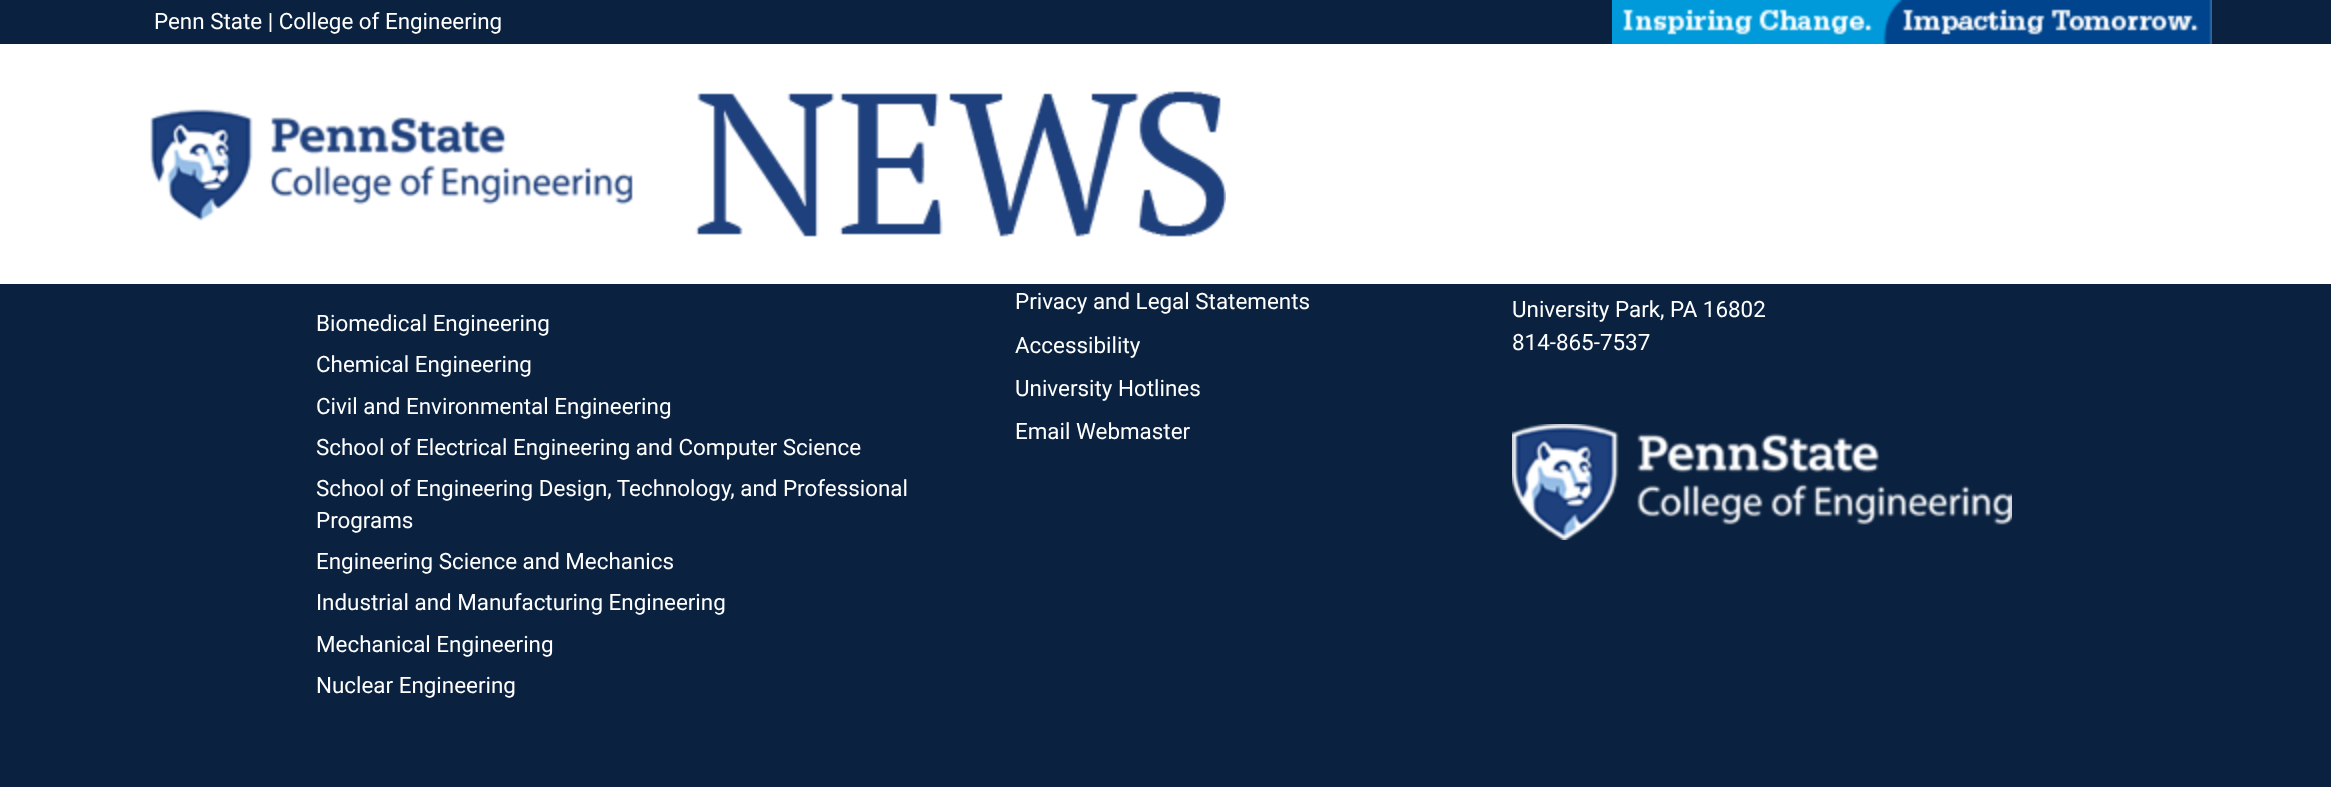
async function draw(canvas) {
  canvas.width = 2331;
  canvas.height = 787;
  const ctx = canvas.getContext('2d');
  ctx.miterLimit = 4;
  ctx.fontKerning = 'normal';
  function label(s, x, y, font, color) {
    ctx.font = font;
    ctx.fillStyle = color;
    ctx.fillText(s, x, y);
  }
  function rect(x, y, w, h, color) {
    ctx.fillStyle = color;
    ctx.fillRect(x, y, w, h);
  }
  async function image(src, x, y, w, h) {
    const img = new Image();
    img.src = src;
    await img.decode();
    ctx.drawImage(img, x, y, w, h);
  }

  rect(0, 0, 2331, 787, '#0a2240');
  label('Penn State | College of Engineering', 154, 29, '22.4px Roboto', '#fff');
  await image('assets/img1.png', 1612, 0, 600, 44);
  rect(0, 44, 2331, 240, '#fff');
  await image('assets/img2.png', 150, 91, 1076, 146);
  label('Biomedical Engineering', 316, 331, '22.4px Roboto', '#fff');
  label('Chemical Engineering', 316, 372, '22.4px Roboto', '#fff');
  label('Civil and Environmental Engineering', 316, 414, '22.4px Roboto', '#fff');
  label('School of Electrical Engineering and Computer Science', 316, 455, '22.4px Roboto', '#fff');
  label('School of Engineering Design, Technology, and Professional', 316, 496, '22.4px Roboto', '#fff');
  label('Programs', 316, 528, '22.4px Roboto', '#fff');
  label('Engineering Science and Mechanics', 316, 569, '22.4px Roboto', '#fff');
  label('Industrial and Manufacturing Engineering', 316, 610, '22.4px Roboto', '#fff');
  label('Mechanical Engineering', 316, 652, '22.4px Roboto', '#fff');
  label('Nuclear Engineering', 316, 693, '22.4px Roboto', '#fff');
  label('Privacy and Legal Statements', 1015, 309, '22.4px Roboto', '#fff');
  label('Accessibility', 1015, 353, '22.4px Roboto', '#fff');
  label('University Hotlines', 1015, 396, '22.4px Roboto', '#fff');
  label('Email Webmaster', 1015, 439, '22.4px Roboto', '#fff');
  label('University Park, PA 16802', 1512, 317, '22.4px Roboto', '#fff');
  label('814-865-7537', 1512, 350, '22.4px Roboto', '#fff');
  await image('assets/img3.png', 1512, 424, 500, 116);
}

draw(document.querySelector('canvas'));
